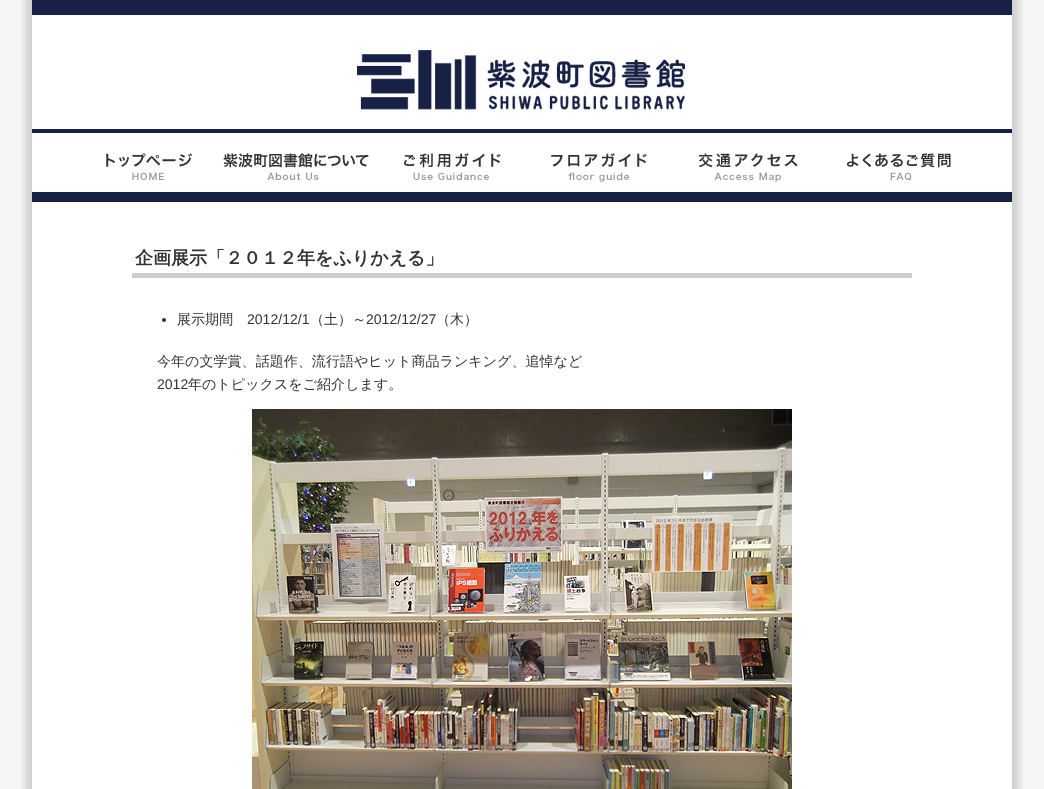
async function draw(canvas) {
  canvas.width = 1044;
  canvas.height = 789;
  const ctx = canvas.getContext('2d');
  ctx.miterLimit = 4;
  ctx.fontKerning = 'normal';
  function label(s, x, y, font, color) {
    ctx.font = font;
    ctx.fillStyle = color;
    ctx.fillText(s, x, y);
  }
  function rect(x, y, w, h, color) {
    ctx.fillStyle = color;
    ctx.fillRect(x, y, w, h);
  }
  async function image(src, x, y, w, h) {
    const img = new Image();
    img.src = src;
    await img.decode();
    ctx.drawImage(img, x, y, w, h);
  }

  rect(0, 0, 1044, 789, '#f5f5f5');
  await image('assets/img1.png', 21, 0, 1002, 789);
  rect(32, 0, 980, 15, '#172145');
  await image('assets/img2.png', 357, 50, 328, 60);
  await image('assets/img3.png', 32, 129, 980, 73);
  await image('assets/img4.png', 106, 153, 86, 27);
  await image('assets/img5.png', 223, 153, 146, 27);
  await image('assets/img6.png', 404, 153, 97, 27);
  await image('assets/img7.png', 551, 153, 96, 29);
  await image('assets/img8.png', 699, 153, 99, 29);
  await image('assets/img9.png', 847, 153, 104, 28);
  rect(132, 273, 780, 5, '#ccc');
  label('企画展示「２０１２年をふりかえる」', 135, 264, 'bold 18px WenQuanYi Zen Hei', '#333');
  ctx.beginPath();
  ctx.arc(164, 320, 2, 0, 2 * Math.PI);
  ctx.fill();
  label('展示期間', 177, 324, '500 14.05px WenQuanYi Zen Hei', '#333');
  label('2012/12/1', 247, 324, '14.05px Liberation Sans', '#333');
  label('（土）～', 310, 324, '500 14.05px WenQuanYi Zen Hei', '#333');
  label('2012/12/27', 366, 324, '14.05px Liberation Sans', '#333');
  label('（木）', 436, 324, '500 14.05px WenQuanYi Zen Hei', '#333');
  label('今年の文学賞、話題作、流行語やヒット商品ランキング、追悼など', 157, 366, '500 14.05px WenQuanYi Zen Hei', '#333');
  label('2012', 157, 389, '14.05px Liberation Sans', '#333');
  label('年のトピックスをご紹介します。', 188, 389, '500 14.05px WenQuanYi Zen Hei', '#333');
  await image('assets/img10.png', 252, 409, 540, 380);
}

draw(document.querySelector('canvas'));
